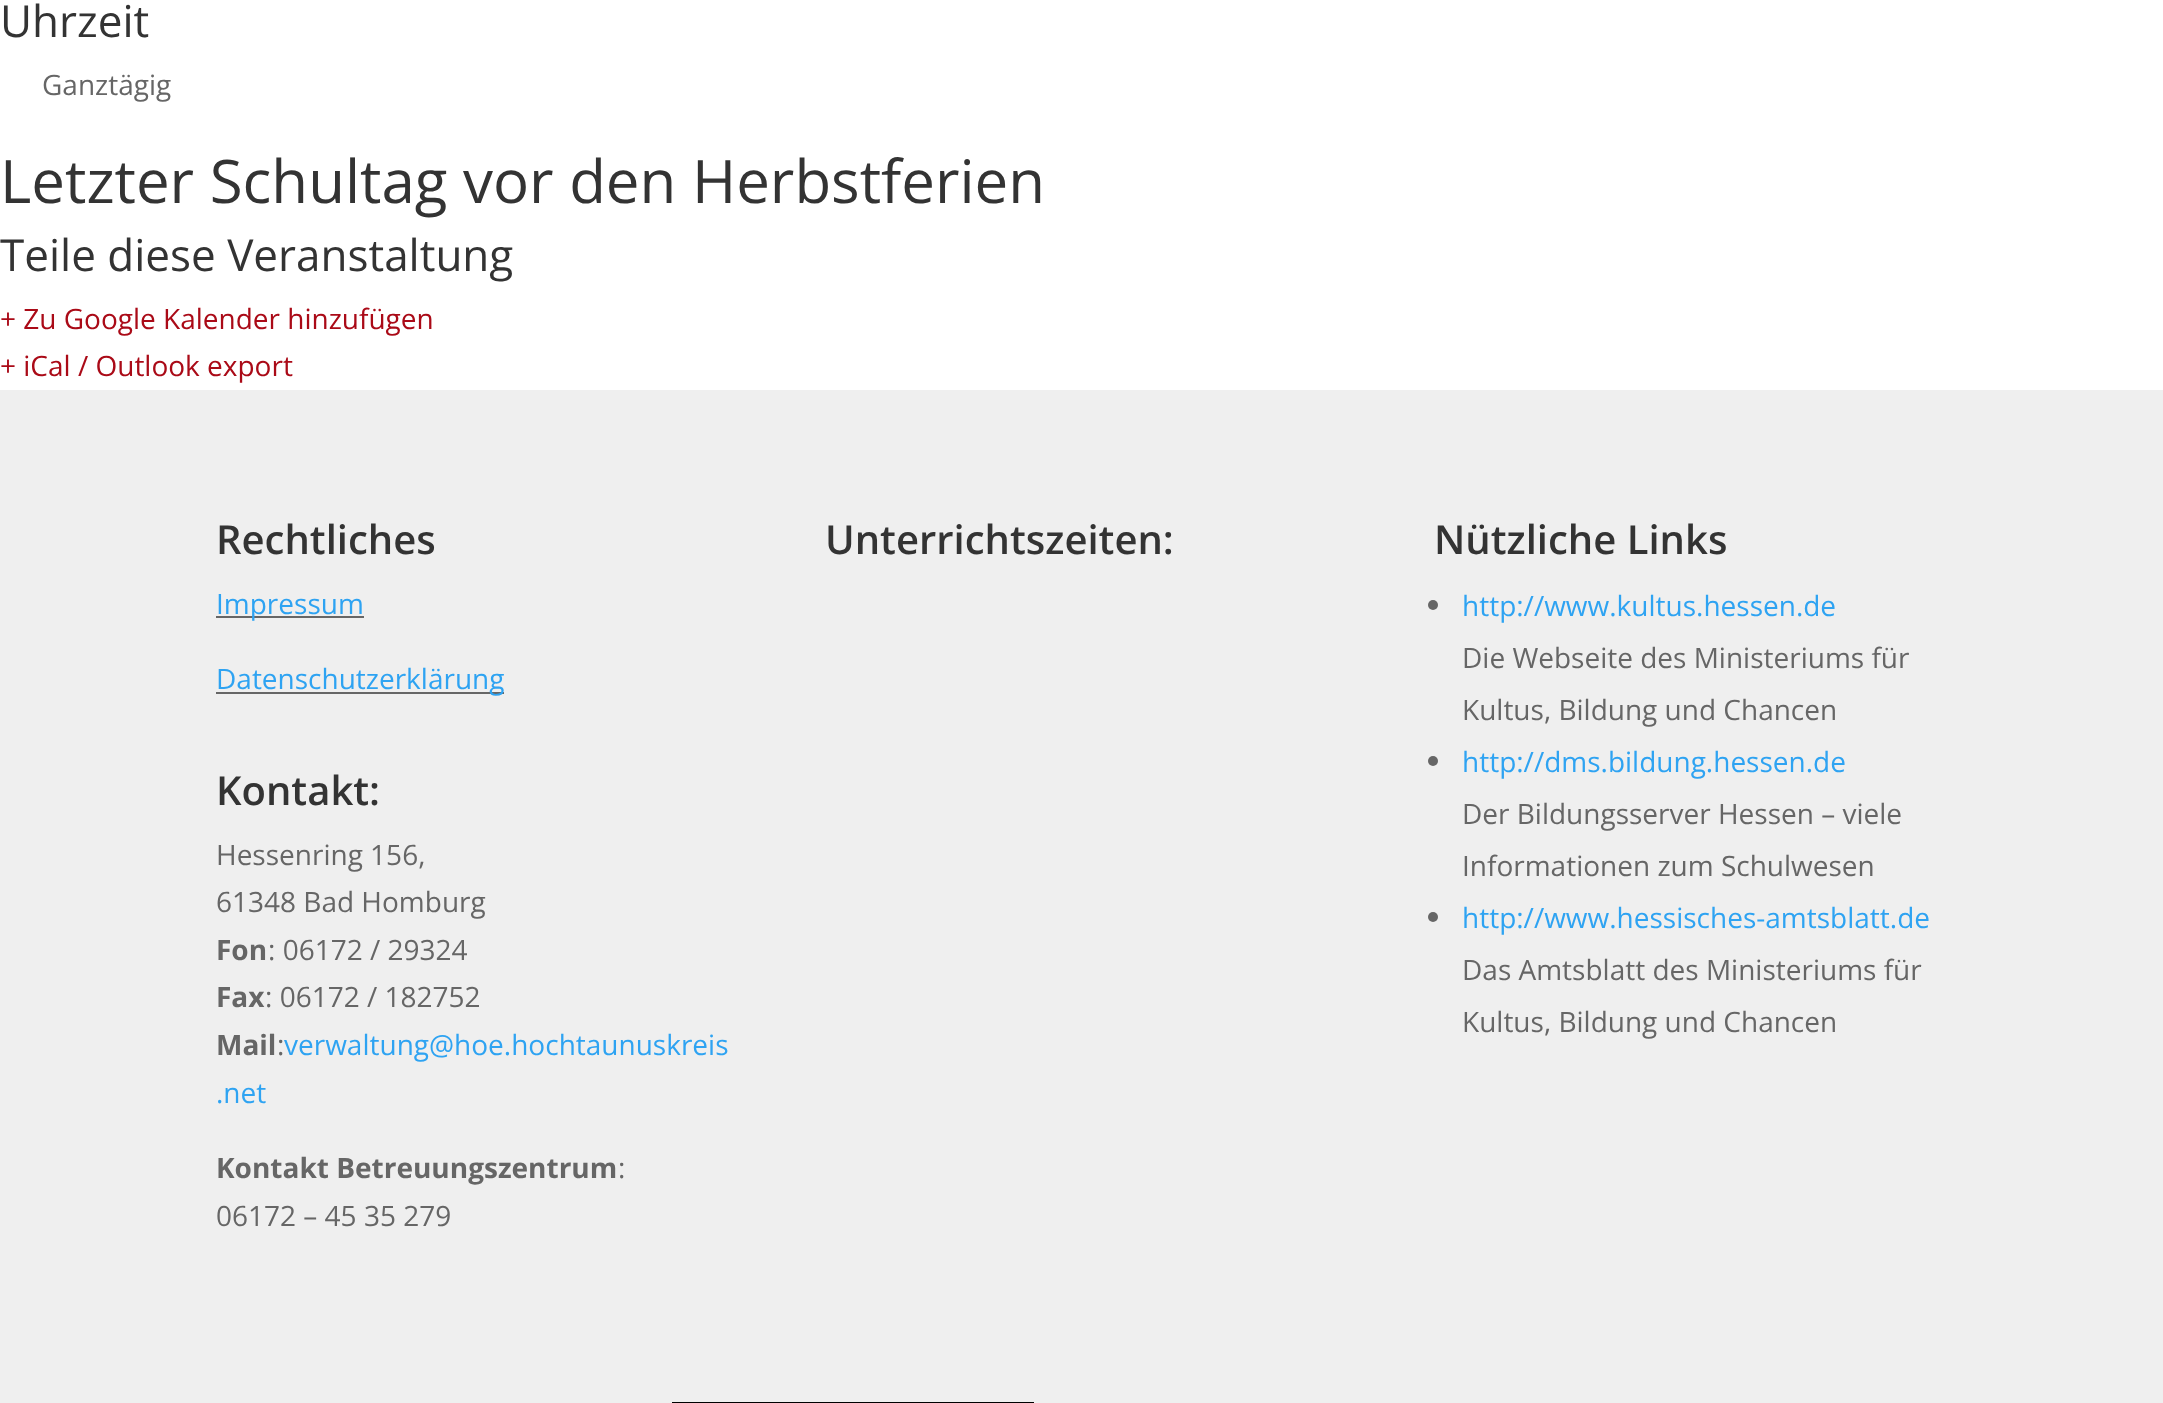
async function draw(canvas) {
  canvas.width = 2163;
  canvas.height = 1403;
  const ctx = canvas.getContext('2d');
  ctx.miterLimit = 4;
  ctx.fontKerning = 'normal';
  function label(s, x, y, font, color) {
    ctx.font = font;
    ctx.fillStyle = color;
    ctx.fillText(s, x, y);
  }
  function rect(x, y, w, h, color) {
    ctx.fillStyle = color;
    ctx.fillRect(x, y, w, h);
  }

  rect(0, 0, 2163, 1403, '#fff');
  label('Uhrzeit', 0, 37, '44px Open Sans', '#333');
  label('Ganztägig', 42, 95, '28px Open Sans', '#666');
  label('Letzter Schultag vor den Herbstferien', 0, 203, '60px Open Sans', '#333');
  label('Teile diese Veranstaltung', 0, 271, '44px Open Sans', '#333');
  label('+ Zu Google Kalender hinzufügen', 0, 329, '28px Open Sans', '#aa0a17');
  label('+ iCal / Outlook export', 0, 376, '28px Open Sans', '#aa0a17');
  rect(0, 390, 2163, 1013, '#efefef');
  label('Rechtliches', 216, 554, '600 40px Open Sans', '#333');
  rect(216, 616, 148, 2, '#666');
  label('Impressum', 216, 614, '28px Open Sans', '#2ea3f2');
  rect(216, 692, 288, 2, '#666');
  label('Datenschutzerklärung', 216, 689, '28px Open Sans', '#2ea3f2');
  label('Kontakt:', 216, 805, '600 40px Open Sans', '#333');
  label('Hessenring 156,', 216, 865, '28px Open Sans', '#666');
  label('61348 Bad Homburg', 216, 912, '28px Open Sans', '#666');
  label('Fon', 216, 960, 'bold 28px Open Sans', '#666');
  label(': 06172 / 29324', 268, 960, '28px Open Sans', '#666');
  label('Fax', 216, 1007, 'bold 28px Open Sans', '#666');
  label(': 06172 / 182752', 265, 1007, '28px Open Sans', '#666');
  label('Mail', 216, 1055, 'bold 28px Open Sans', '#666');
  label(':', 277, 1055, '28px Open Sans', '#666');
  label('verwaltung@hoe.hochtaunuskreis', 284, 1055, '28px Open Sans', '#2ea3f2');
  label('.net', 216, 1103, '28px Open Sans', '#2ea3f2');
  label('Kontakt Betreuungszentrum', 216, 1178, 'bold 28px Open Sans', '#666');
  label(':', 618, 1178, '28px Open Sans', '#666');
  label('06172 – 45 35 279', 216, 1226, '28px Open Sans', '#666');
  label('Unterrichtszeiten:', 825, 554, '600 40px Open Sans', '#333');
  label('Nützliche Links', 1434, 554, '600 40px Open Sans', '#333');
  ctx.fillStyle = '#666';
  ctx.beginPath();
  ctx.arc(1433, 605, 5, 0, 2 * Math.PI);
  ctx.fill();
  label('http://www.kultus.hessen.de', 1462, 616, '28px Open Sans', '#2ea3f2');
  label('Die Webseite des Ministeriums für', 1462, 668, '28px Open Sans', '#666');
  label('Kultus, Bildung und Chancen', 1462, 720, '28px Open Sans', '#666');
  ctx.beginPath();
  ctx.arc(1433, 761, 5, 0, 2 * Math.PI);
  ctx.fill();
  label('http://dms.bildung.hessen.de', 1462, 772, '28px Open Sans', '#2ea3f2');
  label('Der Bildungsserver Hessen – viele', 1462, 824, '28px Open Sans', '#666');
  label('Informationen zum Schulwesen', 1462, 876, '28px Open Sans', '#666');
  ctx.beginPath();
  ctx.arc(1433, 917, 5, 0, 2 * Math.PI);
  ctx.fill();
  label('http://www.hessisches-amtsblatt.de', 1462, 928, '28px Open Sans', '#2ea3f2');
  label('Das Amtsblatt des Ministeriums für', 1462, 980, '28px Open Sans', '#666');
  label('Kultus, Bildung und Chancen', 1462, 1032, '28px Open Sans', '#666');
  ctx.strokeStyle = '#000';
  ctx.lineWidth = 2;
  ctx.strokeRect(673, 1403, 360, 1);
}

draw(document.querySelector('canvas'));
